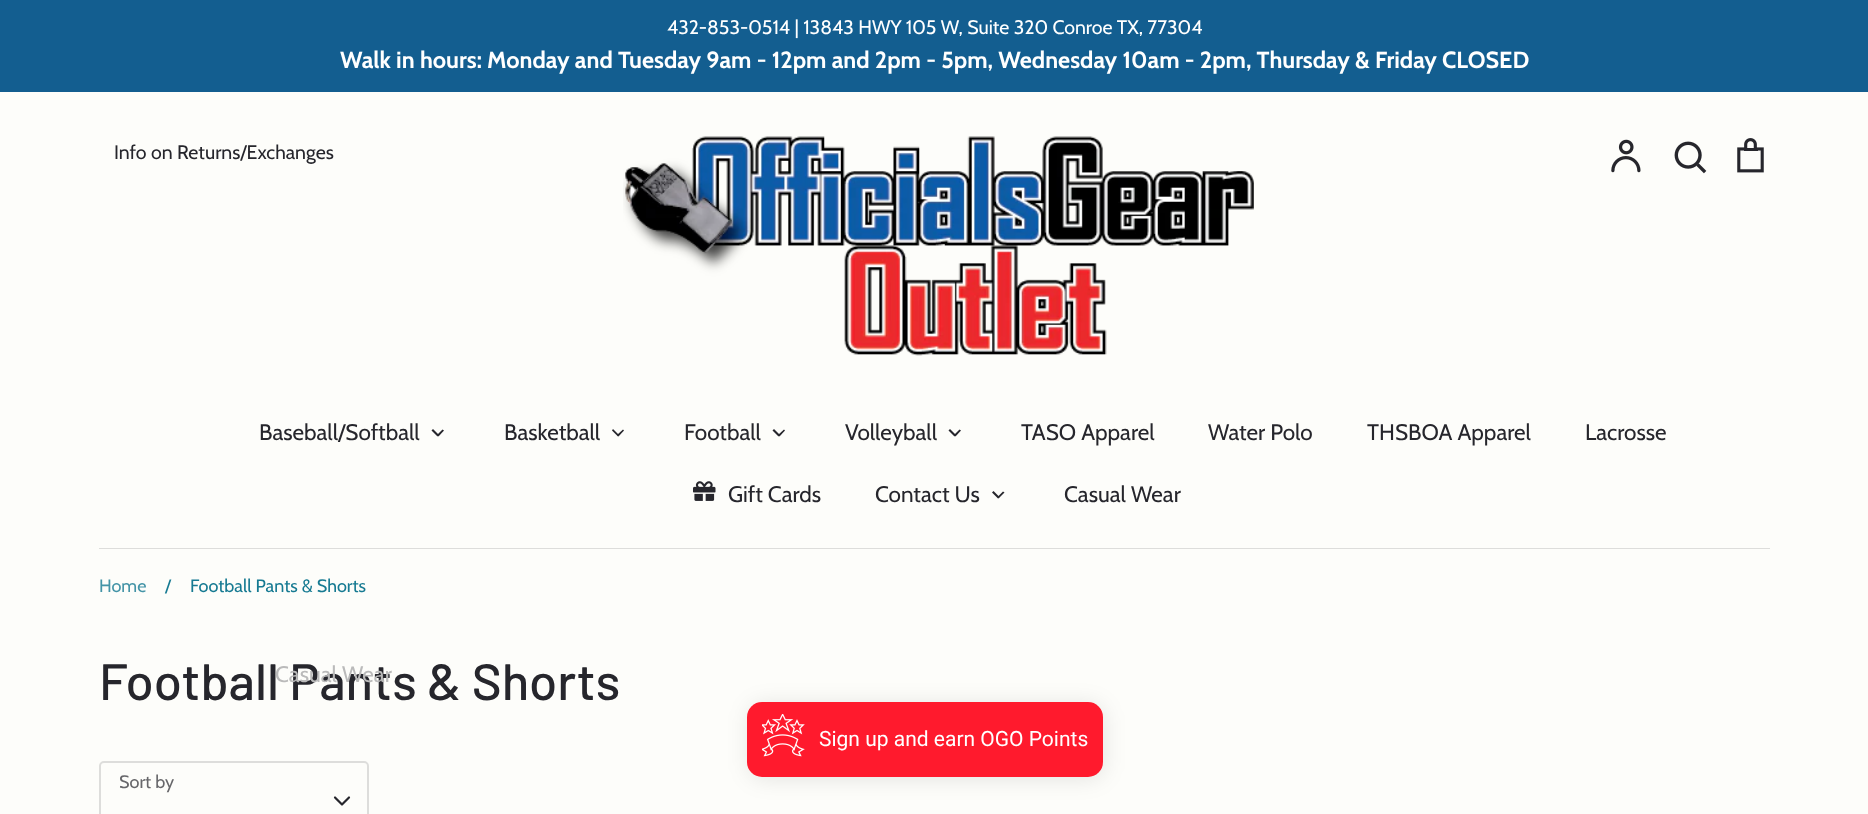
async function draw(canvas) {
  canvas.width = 1868;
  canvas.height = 814;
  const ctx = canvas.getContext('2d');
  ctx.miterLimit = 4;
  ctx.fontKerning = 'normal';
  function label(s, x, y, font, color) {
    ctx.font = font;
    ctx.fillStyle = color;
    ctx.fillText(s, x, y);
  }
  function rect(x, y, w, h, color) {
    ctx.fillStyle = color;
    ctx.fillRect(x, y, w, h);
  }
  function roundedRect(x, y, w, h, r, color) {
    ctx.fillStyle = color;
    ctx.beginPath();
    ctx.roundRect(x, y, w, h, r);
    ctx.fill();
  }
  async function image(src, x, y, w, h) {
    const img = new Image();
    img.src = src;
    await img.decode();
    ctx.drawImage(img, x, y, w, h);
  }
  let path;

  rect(0, 0, 1868, 814, '#fdfdfa');
  rect(0, 0, 1868, 92, '#135e90');
  label('432-853-0514 | 13843 HWY 105 W, Suite 320 Conroe TX, 77304', 667, 34, '19.5px Cabin', '#fff');
  label('Walk in hours: Monday and Tuesday 9am - 12pm and 2pm - 5pm, Wednesday 10am - 2pm, Thursday & Friday CLOSED', 340, 68, 'bold 23.4px Cabin', '#fff');
  label('Info on Returns/Exchanges', 114, 159, '19.5px Cabin', '#26262c');
  await image('assets/img1.png', 623, 136, 631, 220);
  await image('assets/img2.png', 1611, 139, 30, 34);
  await image('assets/img3.png', 1737, 138, 27, 35);
  await image('assets/img4.png', 1674, 141, 33, 33);
  label('Football Pants & Shorts', 99, 700, '500 51px Barlow', '#26262c');
  label('Casual Wear', 275, 682, '22.5px Cabin', '#bababa');
  rect(99, 548, 1671, 1, '#dddddb');
  label('Baseball/Softball', 259, 440, '22.5px Cabin', '#26262c');
  path = new Path2D('M442.5 429.5L444 430.5L438.5 436.5L437 435Z');
  ctx.fill(path);
  path = new Path2D('M433 429L439 435L437.5 436.5L431.5 430.5Z');
  ctx.fill(path);
  label('Basketball', 504, 440, '22.5px Cabin', '#26262c');
  path = new Path2D('M623 429.5L624 430.5L618.5 436.5L617 435Z');
  ctx.fill(path);
  path = new Path2D('M613 429L619 435L618 436.5L612 430.5Z');
  ctx.fill(path);
  label('Football', 684, 440, '22.5px Cabin', '#26262c');
  path = new Path2D('M784 429.5L785 430.5L779.5 436.5L778 435Z');
  ctx.fill(path);
  path = new Path2D('M774 429L780 435L778.5 436.5L772.5 430.5Z');
  ctx.fill(path);
  label('Volleyball', 845, 440, '22.5px Cabin', '#26262c');
  path = new Path2D('M959.5 429.5L961 430.5L955.5 436.5L954 435Z');
  ctx.fill(path);
  path = new Path2D('M950 429L956 435L954.5 436.5L948.5 430.5Z');
  ctx.fill(path);
  label('TASO Apparel', 1021, 440, '22.5px Cabin', '#26262c');
  label('Water Polo', 1208, 440, '22.5px Cabin', '#26262c');
  label('THSBOA Apparel', 1367, 440, '22.5px Cabin', '#26262c');
  label('Lacrosse', 1585, 440, '22.5px Cabin', '#26262c');
  await image('assets/img5.png', 693, 481, 23, 20);
  label('Gift Cards', 728, 502, '22.5px Cabin', '#26262c');
  label('Contact Us', 875, 502, '22.5px Cabin', '#26262c');
  path = new Path2D('M1003 491.5L1004.5 492.5L998.5 498.5L997.5 497Z');
  ctx.fill(path);
  path = new Path2D('M993.5 491L999.5 497L998 498.5L992 492.5Z');
  ctx.fill(path);
  label('Casual Wear', 1064, 502, '22.5px Cabin', '#26262c');
  label('Home', 99, 592, '18px Cabin', '#4494a7');
  label('/', 165, 592, '18px Cabin', '#167a92');
  label('Football Pants & Shorts', 190, 592, '18px Cabin', '#167a92');
  ctx.beginPath();
  ctx.roundRect(100, 762, 268, 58, 4);
  ctx.strokeStyle = '#dddddb';
  ctx.lineWidth = 2;
  ctx.stroke();
  path = new Path2D('M335 797.5L342 804.5L349 797.5');
  ctx.strokeStyle = '#26262c';
  ctx.lineWidth = 2.2;
  ctx.lineCap = 'round';
  ctx.lineJoin = 'round';
  ctx.stroke(path);
  label('Sort by', 119, 788, '18px Cabin', '#67676a');
  ctx.fillStyle = '#0000001a';
  ctx.filter = 'blur(11px)';
  ctx.beginPath();
  ctx.roundRect(749, 704, 355, 75, 15);
  ctx.fill();
  ctx.filter = 'none';
  roundedRect(747, 702, 356, 75, 15, '#ff1a2d');
  await image('assets/img6.png', 762, 714, 43, 43);
  label('Sign up and earn OGO Points', 819, 746, '21px Roboto', '#fff');
}

draw(document.querySelector('canvas'));
